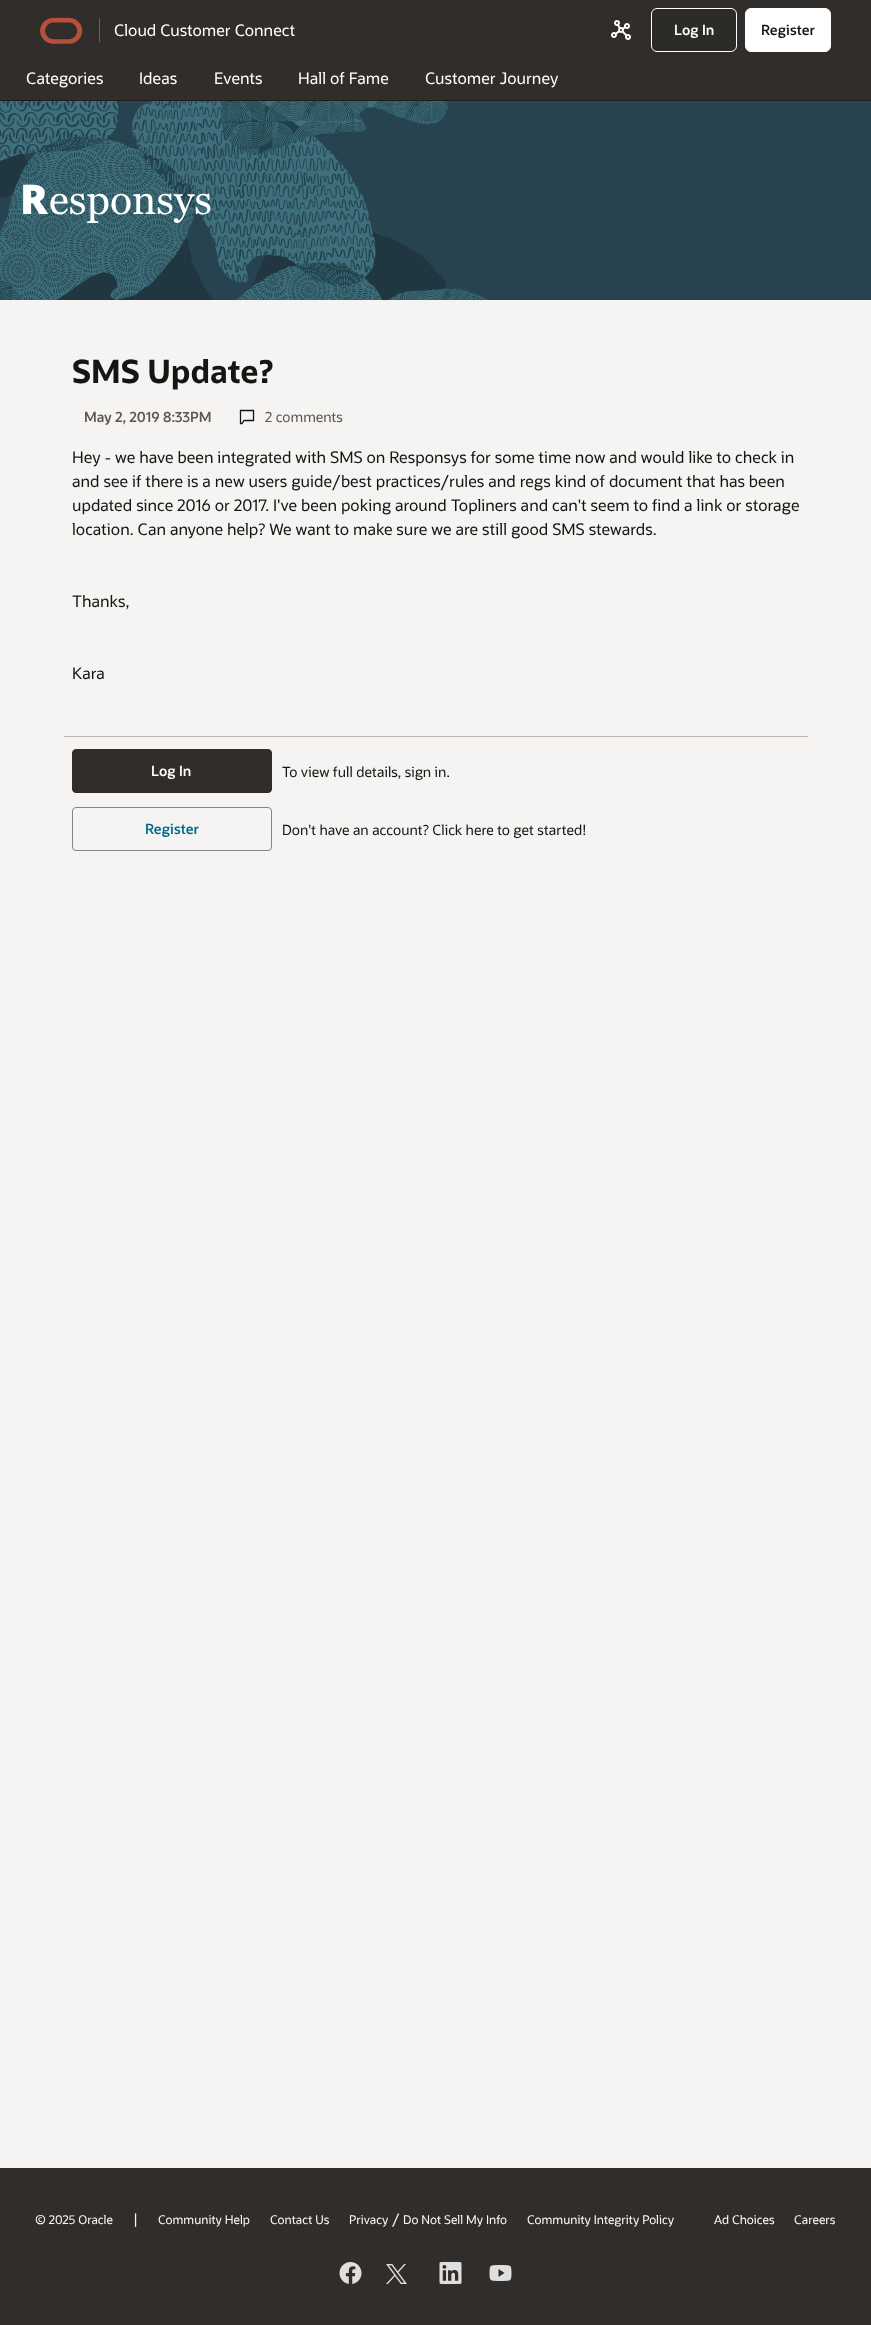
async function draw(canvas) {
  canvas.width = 871;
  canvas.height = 2325;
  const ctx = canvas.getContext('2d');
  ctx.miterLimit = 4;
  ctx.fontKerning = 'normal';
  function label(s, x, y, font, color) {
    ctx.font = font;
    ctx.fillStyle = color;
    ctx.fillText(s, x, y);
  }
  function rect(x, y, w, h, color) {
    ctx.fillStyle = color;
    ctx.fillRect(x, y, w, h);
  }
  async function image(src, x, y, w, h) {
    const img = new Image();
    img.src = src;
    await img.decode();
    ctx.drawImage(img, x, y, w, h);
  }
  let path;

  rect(0, 0, 871, 2325, '#f5f4f2');
  rect(0, 0, 871, 60, '#302d2a');
  await image('assets/img1.png', 40, 17, 43, 27);
  rect(99, 18, 1, 24, '#665f5b');
  label('Cloud Customer Connect', 114, 36, '16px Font', '#fff');
  await image('assets/img2.png', 611, 20, 20, 20);
  ctx.fillStyle = '#2d2b28';
  ctx.beginPath();
  ctx.roundRect(651.5, 8.5, 85, 43, 5.5);
  ctx.fill();
  ctx.strokeStyle = '#fff';
  ctx.stroke();
  label('Log In', 674, 35, '600 14px Font', '#fff');
  ctx.beginPath();
  ctx.roundRect(745.5, 8.5, 85, 43, 5.5);
  ctx.fill();
  ctx.stroke();
  label('Register', 761, 35, '600 14px Font', '#161513');
  rect(0, 60, 871, 40, '#312d2a');
  label('Categories', 26, 84, '16px Font', '#fff');
  label('Ideas', 139, 84, '16px Font', '#fff');
  label('Events', 214, 84, '16px Font', '#fff');
  label('Hall of Fame', 298, 84, '16px Font', '#fff');
  label('Customer Journey', 425, 84, '16px Font', '#fff');
  rect(0, 100, 871, 1, '#201e1c');
  rect(488, 101, 383, 199, '#284350');
  await image('assets/img3.png', 0, 101, 488, 199);
  label('R', 20, 214, '900 41px Noto Sans', '#fff');
  label('esponsys', 49, 214, '41px Georgia', '#fff');
  label('SMS Update?', 72, 383, 'bold 32px Font', '#161513');
  label('May 2, 2019 8:33PM', 84, 422, '600 14px Font', '#5b5652');
  path = new Path2D('M253.5 410.5H240.5V423.5H242L244 420.5H253.5Z');
  ctx.strokeStyle = '#161513';
  ctx.lineWidth = 1.3;
  ctx.stroke(path);
  label('2 comments', 265, 422, '14px Font', '#5b5652');
  label('Hey - we have been integrated with SMS on Responsys for some time now and would like to check in', 72, 463, '16px Font', '#161513');
  label('and see if there is a new users guide/best practices/rules and regs kind of document that has been', 72, 487, '16px Font', '#161513');
  label('updated since 2016 or 2017. I\'ve been poking around Topliners and can\'t seem to find a link or storage', 72, 511, '16px Font', '#161513');
  label('location. Can anyone help? We want to make sure we are still good SMS stewards.', 72, 535, '16px Font', '#161513');
  label('Thanks,', 72, 607, '16px Font', '#161513');
  label('Kara', 72, 679, '16px Font', '#161513');
  rect(64, 736, 744, 1, '#bbb6b2');
  ctx.fillStyle = '#312d2a';
  ctx.beginPath();
  ctx.roundRect(72.5, 749.5, 199, 43, 3.5);
  ctx.fill();
  ctx.strokeStyle = '#312d2a';
  ctx.lineWidth = 1;
  ctx.stroke();
  label('Log In', 151, 776, '600 14px Font', '#fff');
  label('To view full details, sign in.', 282, 777, '14px Font', '#161513');
  ctx.beginPath();
  ctx.roundRect(72.5, 807.5, 199, 43, 3.5);
  ctx.strokeStyle = '#868583';
  ctx.stroke();
  label('Register', 145, 834, '600 14px Font', '#00688c');
  label('Don\'t have an account? Click here to get started!', 282, 835, '14px Font', '#161513');
  rect(0, 2168, 871, 157, '#312d2a');
  label('© 2025 Oracle', 35, 2224, '12px Font', '#fbf9f8');
  label('|', 133, 2224, '14px Font', '#f5f4f2');
  label('Community Help', 158, 2224, '12px Font', '#fbf9f8');
  label('Contact Us', 270, 2224, '12px Font', '#fbf9f8');
  label('Privacy', 349, 2224, '12px Font', '#fbf9f8');
  label('/', 392, 2224, '14px Font', '#f5f4f2');
  label('Do Not Sell My Info', 403, 2224, '12px Font', '#fbf9f8');
  label('Community Integrity Policy', 527, 2224, '12px Font', '#fbf9f8');
  label('Ad Choices', 714, 2224, '12px Font', '#fbf9f8');
  label('Careers', 794, 2224, '12px Font', '#fbf9f8');
  await image('assets/img4.png', 339, 2262, 23, 22);
  await image('assets/img5.png', 386, 2264, 21, 20);
  await image('assets/img6.png', 439, 2262, 23, 22);
  await image('assets/img7.png', 489, 2265, 23, 16);
}

draw(document.querySelector('canvas'));
